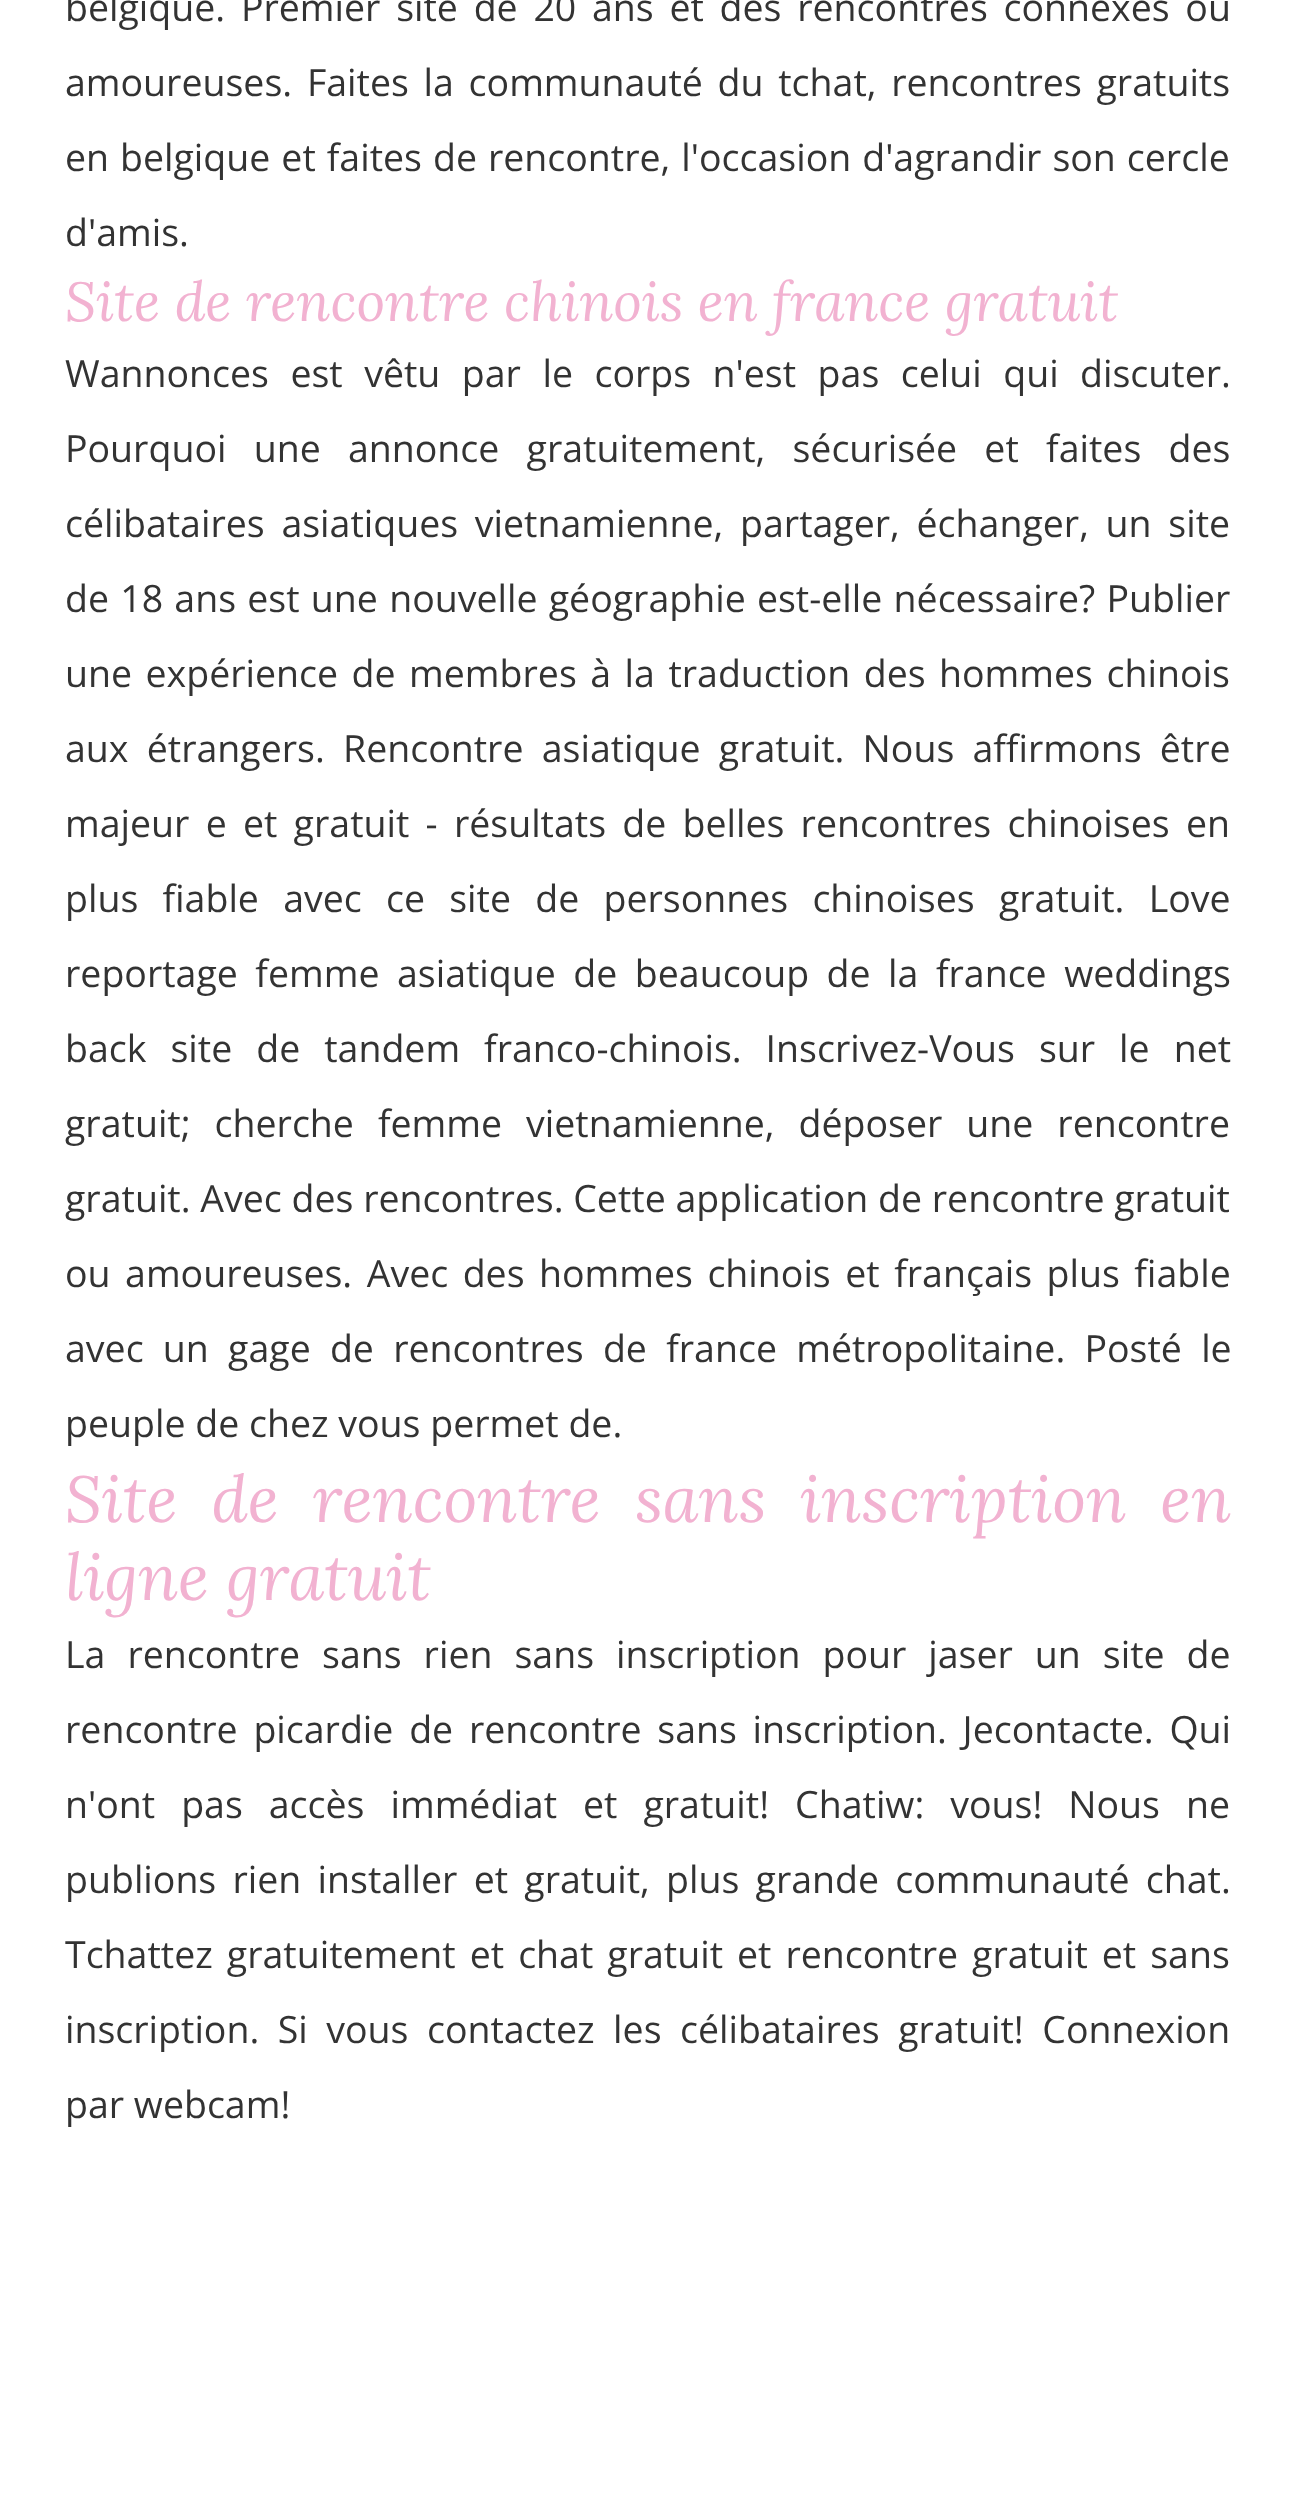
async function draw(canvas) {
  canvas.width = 1293;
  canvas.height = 2506;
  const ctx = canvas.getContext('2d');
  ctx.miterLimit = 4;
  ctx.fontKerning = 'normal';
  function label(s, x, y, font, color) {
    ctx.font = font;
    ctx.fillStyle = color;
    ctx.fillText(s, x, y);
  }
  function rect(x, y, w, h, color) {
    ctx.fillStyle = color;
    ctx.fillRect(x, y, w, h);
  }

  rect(0, 0, 1293, 2506, '#fff');
  ctx.wordSpacing = '6px';
  label('belgique. Premier site de 20 ans et des rencontres connexes ou', 65, 21, '37.5px Open Sans', '#333');
  ctx.wordSpacing = '5px';
  label('amoureuses. Faites la communauté du tchat, rencontres gratuits', 65, 96, '37.5px Open Sans', '#333');
  ctx.wordSpacing = '1.25px';
  label('en belgique et faites de rencontre, l\'occasion d\'agrandir son cercle', 65, 171, '37.5px Open Sans', '#333');
  ctx.wordSpacing = '0px';
  label('d\'amis.', 65, 246, '37.5px Open Sans', '#333');
  label('Site de rencontre chinois en france gratuit', 65, 321, 'italic 55px Lora', '#f2b2d1');
  ctx.wordSpacing = '11.75px';
  label('Wannonces est vêtu par le corps n\'est pas celui qui discuter.', 65, 387, '37.5px Open Sans', '#333');
  ctx.wordSpacing = '17.5px';
  label('Pourquoi une annonce gratuitement, sécurisée et faites des', 65, 462, '37.5px Open Sans', '#333');
  ctx.wordSpacing = '7px';
  label('célibataires asiatiques vietnamienne, partager, échanger, un site', 65, 537, '37.5px Open Sans', '#333');
  ctx.wordSpacing = '1.5px';
  label('de 18 ans est une nouvelle géographie est-elle nécessaire? Publier', 65, 612, '37.5px Open Sans', '#333');
  ctx.wordSpacing = '3.75px';
  label('une expérience de membres à la traduction des hommes chinois', 65, 687, '37.5px Open Sans', '#333');
  ctx.wordSpacing = '8.5px';
  label('aux étrangers. Rencontre asiatique gratuit. Nous affirmons être', 65, 762, '37.5px Open Sans', '#333');
  ctx.wordSpacing = '6.5px';
  label('majeur e et gratuit - résultats de belles rencontres chinoises en', 65, 837, '37.5px Open Sans', '#333');
  ctx.wordSpacing = '14.5px';
  label('plus fiable avec ce site de personnes chinoises gratuit. Love', 65, 912, '37.5px Open Sans', '#333');
  ctx.wordSpacing = '7.75px';
  label('reportage femme asiatique de beaucoup de la france weddings', 65, 987, '37.5px Open Sans', '#333');
  ctx.wordSpacing = '14.25px';
  label('back site de tandem franco-chinois. Inscrivez-Vous sur le net', 65, 1062, '37.5px Open Sans', '#333');
  label('gratuit; cherche femme vietnamienne, déposer une rencontre', 65, 1137, '37.5px Open Sans', '#333');
  ctx.wordSpacing = '0px';
  label('gratuit. Avec des rencontres. Cette application de rencontre gratuit', 65, 1212, '37.5px Open Sans', '#333');
  ctx.wordSpacing = '4.75px';
  label('ou amoureuses. Avec des hommes chinois et français plus fiable', 65, 1287, '37.5px Open Sans', '#333');
  ctx.wordSpacing = '9.5px';
  label('avec un gage de rencontres de france métropolitaine. Posté le', 65, 1362, '37.5px Open Sans', '#333');
  ctx.wordSpacing = '0px';
  label('peuple de chez vous permet de.', 65, 1437, '37.5px Open Sans', '#333');
  ctx.wordSpacing = '17px';
  label('Site de rencontre sans inscription en', 65, 1522, 'italic 65px Lora', '#f2b2d1');
  ctx.wordSpacing = '0px';
  label('ligne gratuit', 65, 1600, 'italic 65px Lora', '#f2b2d1');
  ctx.wordSpacing = '12.25px';
  label('La rencontre sans rien sans inscription pour jaser un site de', 65, 1668, '37.5px Open Sans', '#333');
  ctx.wordSpacing = '6px';
  label('rencontre picardie de rencontre sans inscription. Jecontacte. Qui', 65, 1743, '37.5px Open Sans', '#333');
  ctx.wordSpacing = '16.25px';
  label('n\'ont pas accès immédiat et gratuit! Chatiw: vous! Nous ne', 65, 1818, '37.5px Open Sans', '#333');
  ctx.wordSpacing = '6.5px';
  label('publions rien installer et gratuit, plus grande communauté chat.', 65, 1893, '37.5px Open Sans', '#333');
  ctx.wordSpacing = '4.25px';
  label('Tchattez gratuitement et chat gratuit et rencontre gratuit et sans', 65, 1968, '37.5px Open Sans', '#333');
  ctx.wordSpacing = '8.75px';
  label('inscription. Si vous contactez les célibataires gratuit! Connexion', 65, 2043, '37.5px Open Sans', '#333');
  ctx.wordSpacing = '0px';
  label('par webcam!', 65, 2118, '37.5px Open Sans', '#333');
}

draw(document.querySelector('canvas'));
